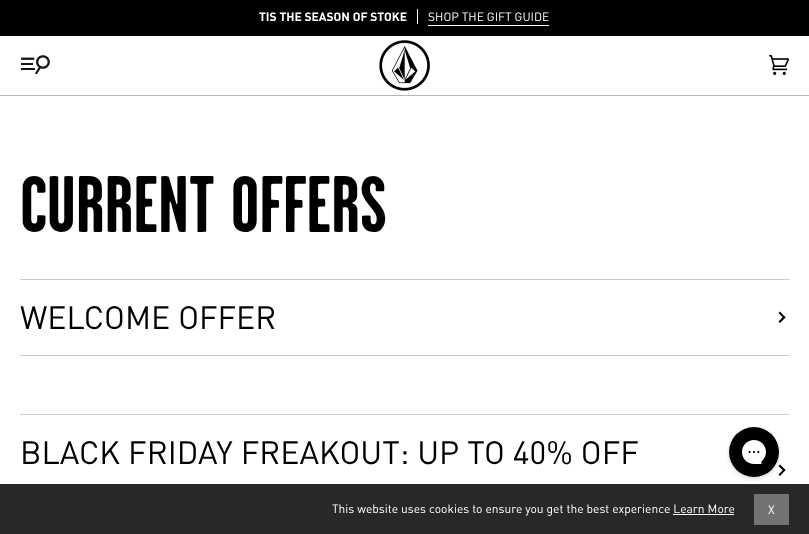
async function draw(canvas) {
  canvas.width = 809;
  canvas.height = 534;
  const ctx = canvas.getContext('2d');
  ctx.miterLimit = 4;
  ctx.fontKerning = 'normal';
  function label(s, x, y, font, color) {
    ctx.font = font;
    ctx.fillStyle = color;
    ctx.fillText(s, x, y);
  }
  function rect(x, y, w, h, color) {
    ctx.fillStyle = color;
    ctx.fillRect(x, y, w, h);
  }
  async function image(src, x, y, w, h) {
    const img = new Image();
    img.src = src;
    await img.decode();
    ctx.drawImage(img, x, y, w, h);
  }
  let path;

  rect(0, 0, 809, 534, '#fff');
  rect(0, 0, 809, 36, '#000');
  label('TIS THE SEASON OF STOKE', 259, 21, 'bold 12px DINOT', '#fff');
  rect(417, 9, 1, 15, '#fff');
  label('SHOP THE GIFT GUIDE', 428, 21, '12px DINOT', '#fff');
  rect(428, 25, 121, 1, '#fff');
  rect(0, 95, 809, 1, '#b7b7b7');
  await image('assets/img1.png', 21, 55, 29, 19);
  await image('assets/img2.png', 379, 40, 51, 51);
  await image('assets/img3.png', 769, 55, 20, 20);
  label('CURRENT OFFERS', 20, 232, 'bold 80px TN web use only', '#000');
  rect(20, 279, 769, 1, '#ccc');
  rect(20, 355, 769, 1, '#ccc');
  label('WELCOME OFFER', 20, 329, '32px DINOT', '#000');
  path = new Path2D('M784 318.5L778.5 313L780 311.5L785.5 317.5Z');
  ctx.fill(path);
  path = new Path2D('M780 323L778.5 321.5L784 316L785.5 317.5Z');
  ctx.fill(path);
  rect(20, 414, 769, 1, '#ccc');
  label('BLACK FRIDAY FREAKOUT: UP TO 40% OFF', 20, 464, '32px DINOT', '#000');
  path = new Path2D('M784 471.5L778.5 466L780 464.5L785.5 470Z');
  ctx.fill(path);
  path = new Path2D('M780 476L778.5 474.5L784 469L785.5 470Z');
  ctx.fill(path);
  await image('assets/img4.png', 727, 427, 54, 54);
  rect(0, 484, 809, 50, '#282828');
  label('This website uses cookies to ensure you get the best experience Learn More', 332, 513, '12px DINOT', '#fff');
  rect(673, 514, 61, 1, '#fff');
  rect(754, 494, 35, 31, '#737373');
  label('X', 768, 514, '12px DINOT', '#fff');
}

draw(document.querySelector('canvas'));
